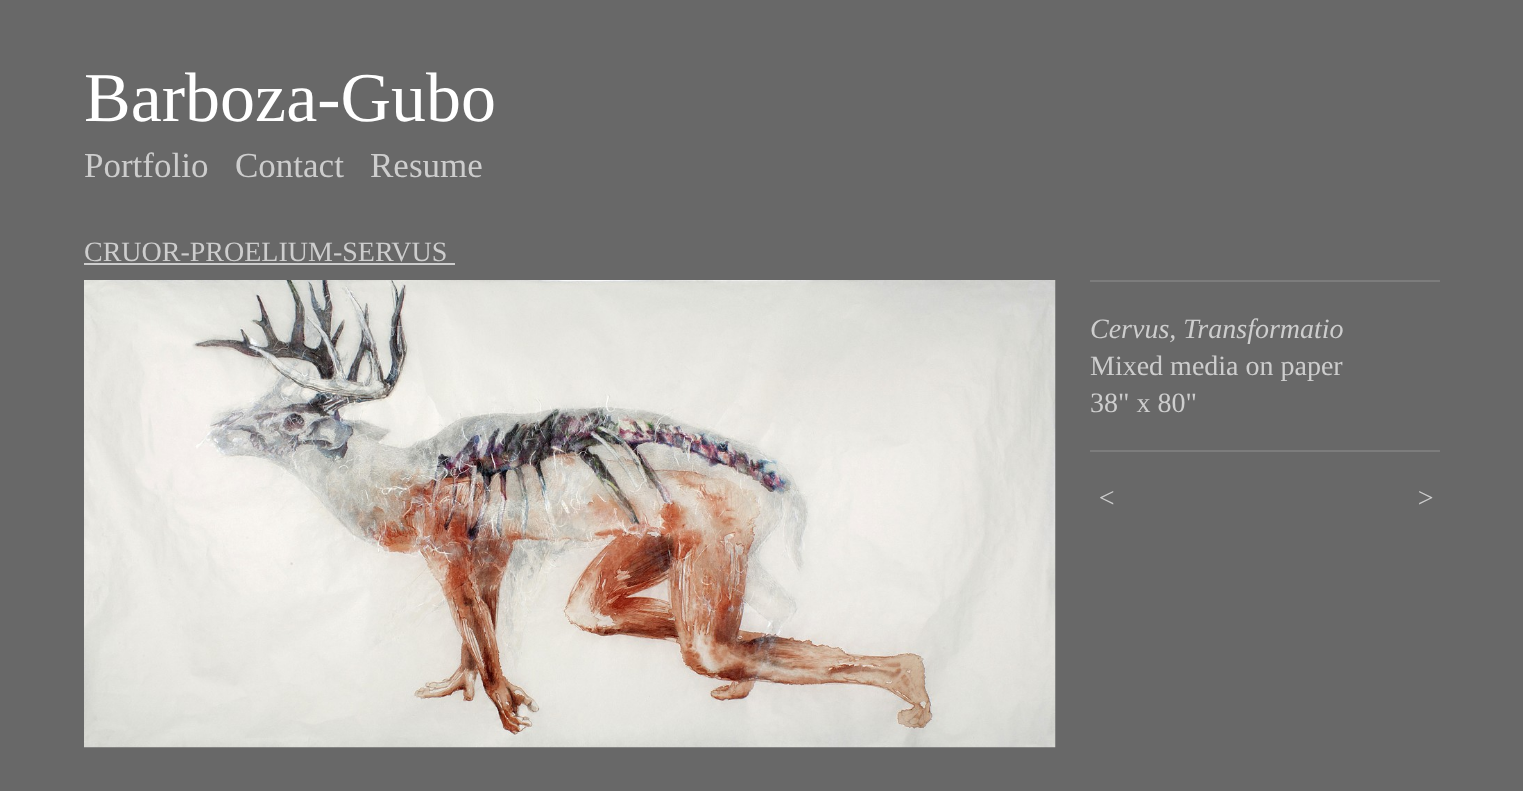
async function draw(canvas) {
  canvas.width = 1523;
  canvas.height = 791;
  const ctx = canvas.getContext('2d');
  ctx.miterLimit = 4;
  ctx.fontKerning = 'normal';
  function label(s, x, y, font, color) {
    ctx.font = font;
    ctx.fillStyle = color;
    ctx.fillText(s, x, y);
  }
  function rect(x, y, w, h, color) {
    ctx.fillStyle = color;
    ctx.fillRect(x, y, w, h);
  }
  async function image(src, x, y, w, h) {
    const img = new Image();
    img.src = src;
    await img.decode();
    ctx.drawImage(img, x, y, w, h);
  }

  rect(0, 0, 1523, 791, '#686868');
  label('Barboza-Gubo', 84, 121, '70px Liberation Serif', '#fff');
  label('Portfolio', 84, 177, '35px Liberation Serif', '#cdcdcd');
  label('Contact', 235, 177, '35px Liberation Serif', '#cdcdcd');
  label('Resume', 370, 177, '35px Liberation Serif', '#cdcdcd');
  label('CRUOR-PROELIUM-SERVUS', 84, 261, '28px Liberation Serif', '#cdcdcd');
  rect(84, 263, 371, 2, '#cdcdcd');
  await image('assets/img1.png', 84, 280, 972, 468);
  rect(1090, 280, 350, 2, '#7c7c7c');
  label('Cervus, Transformatio', 1090, 338, 'italic 28px Liberation Serif', '#cdcdcd');
  label('Mixed media on paper', 1090, 375, '28px Liberation Serif', '#cdcdcd');
  label('38" x 80"', 1090, 412, '28px Liberation Serif', '#cdcdcd');
  rect(1090, 450, 350, 2, '#7c7c7c');
  ctx.letterSpacing = '2px';
  label('<', 1097, 507, 'italic 28px Liberation Serif', '#cdcdcd');
  label('>', 1416, 507, 'italic 28px Liberation Serif', '#cdcdcd');
}

draw(document.querySelector('canvas'));
